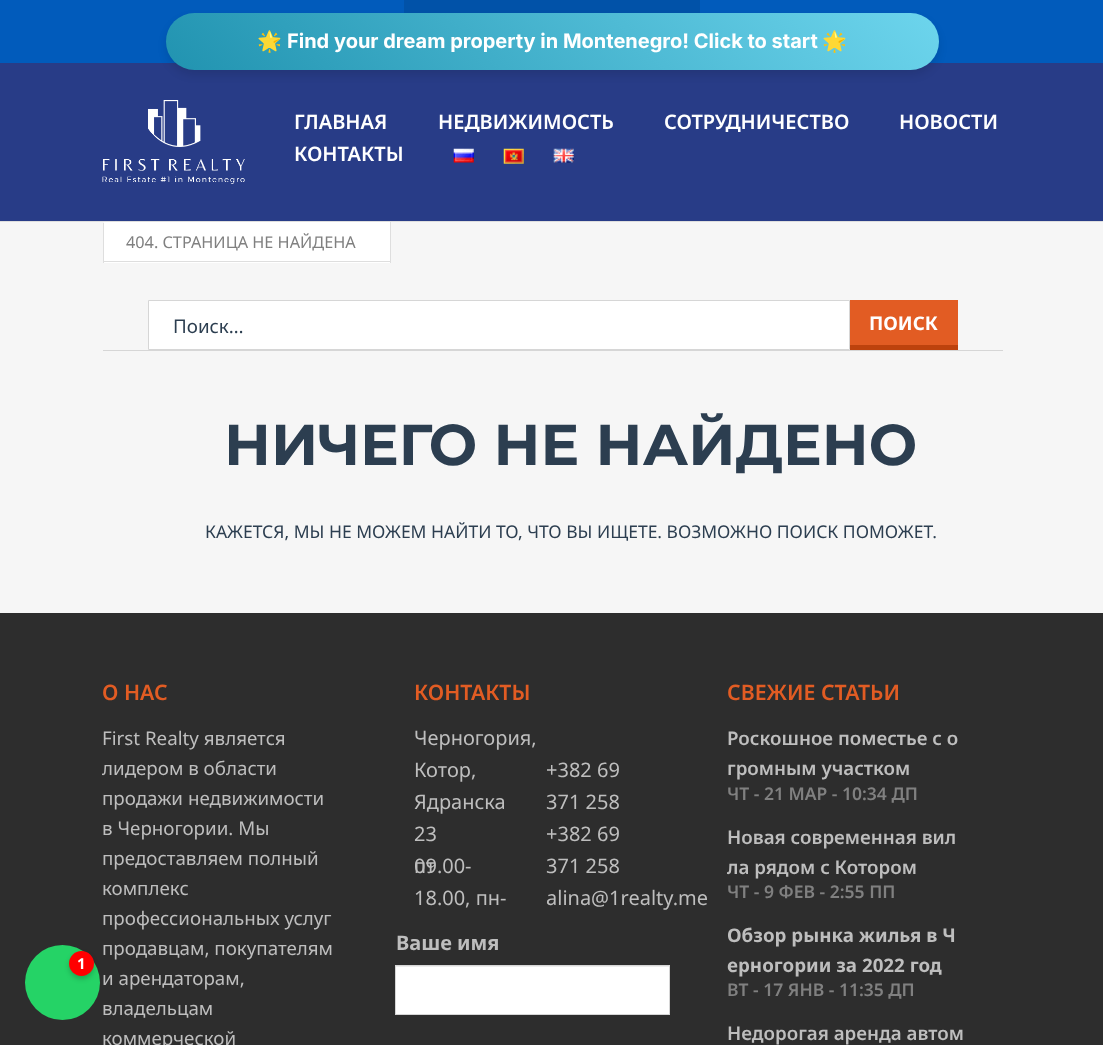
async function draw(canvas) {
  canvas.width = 1103;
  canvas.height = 1045;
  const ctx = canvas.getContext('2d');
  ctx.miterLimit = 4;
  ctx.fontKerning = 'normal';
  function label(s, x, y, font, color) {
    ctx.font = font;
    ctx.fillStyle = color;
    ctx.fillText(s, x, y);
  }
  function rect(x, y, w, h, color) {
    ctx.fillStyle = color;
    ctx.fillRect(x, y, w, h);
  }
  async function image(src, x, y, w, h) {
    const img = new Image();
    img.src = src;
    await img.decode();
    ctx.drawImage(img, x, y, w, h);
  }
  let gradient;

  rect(0, 0, 1103, 1045, '#f6f6f6');
  rect(0, 0, 1103, 63, '#015bbb');
  rect(404, 0, 296, 13, '#0152a8');
  rect(0, 63, 1103, 158, '#283c87');
  ctx.fillStyle = '#0000001a';
  ctx.filter = 'blur(4px)';
  ctx.beginPath();
  ctx.roundRect(166, 18, 773, 57, 28.5);
  ctx.fill();
  ctx.filter = 'none';
  gradient = ctx.createLinearGradient(345, 249, 760, -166);
  gradient.addColorStop(0, '#2193b0');
  gradient.addColorStop(1, '#6dd5ed');
  ctx.fillStyle = gradient;
  ctx.beginPath();
  ctx.roundRect(166, 13, 773, 57, 28.5);
  ctx.fill();
  label('🌟', 257, 48, 'bold 20px Noto Color Emoji', '#fff');
  label('Find your dream property in Montenegro! Click to start', 287, 48, 'bold 20px Inter', '#fff');
  label('🌟', 822, 48, 'bold 20px Noto Color Emoji', '#fff');
  rect(0, 613, 1103, 432, '#2d2d2d');
  ctx.fillStyle = '#25d366';
  ctx.beginPath();
  ctx.arc(62.5, 982.5, 37.5, 0, 2 * Math.PI);
  ctx.fill();
  ctx.fillStyle = '#00000033';
  ctx.filter = 'blur(2.5px)';
  ctx.beginPath();
  ctx.roundRect(69, 954, 25, 25, 12.5);
  ctx.fill();
  ctx.filter = 'none';
  ctx.fillStyle = '#f00';
  ctx.beginPath();
  ctx.arc(81.5, 963.5, 12.5, 0, 2 * Math.PI);
  ctx.fill();
  label('1', 77, 969, 'bold 15px Noto Sans', '#fff');
  await image('assets/img1.png', 102, 100, 143, 84);
  label('ГЛАВНАЯ', 294, 129, '600 20px Noto Sans', '#fff');
  label('НЕДВИЖИМОСТЬ', 438, 129, '600 20px Noto Sans', '#fff');
  label('СОТРУДНИЧЕСТВО', 664, 129, '600 20px Noto Sans', '#fff');
  label('НОВОСТИ', 899, 129, '600 20px Noto Sans', '#fff');
  label('КОНТАКТЫ', 294, 161, '600 20px Noto Sans', '#fff');
  await image('assets/img2.png', 453, 148, 21, 15);
  await image('assets/img3.png', 503, 148, 21, 16);
  await image('assets/img4.png', 553, 148, 21, 15);
  rect(0, 221, 1103, 1, '#dedede');
  rect(103, 223, 1, 40, '#dedede');
  rect(104, 222, 286, 41, '#fff');
  rect(390, 221, 1, 42, '#dedede');
  rect(104, 261, 287, 1, '#dedede');
  label('404. СТРАНИЦА НЕ НАЙДЕНА', 126, 248, '16.25px Noto Sans', '#808080');
  ctx.fillStyle = '#fff';
  ctx.beginPath();
  ctx.rect(148.5, 300.5, 701, 49);
  ctx.fill();
  ctx.strokeStyle = '#d6d6d6';
  ctx.stroke();
  label('Поиск…', 173, 333, '18.75px Noto Sans', '#2c3e50');
  rect(850, 300, 108, 45, '#e25c23');
  rect(850, 345, 108, 5, '#bd420d');
  label('ПОИСК', 869, 330, 'bold 18.75px Noto Sans', '#fff');
  rect(103, 350, 900, 1, '#d6d6d6');
  label('НИЧЕГО НЕ НАЙДЕНО', 224, 465, '100 57.5px Montserrat', '#2c3e50');
  label('КАЖЕТСЯ, МЫ НЕ МОЖЕМ НАЙТИ ТО, ЧТО ВЫ ИЩЕТЕ. ВОЗМОЖНО ПОИСК ПОМОЖЕТ.', 205, 538, '17.5px Noto Sans', '#2c3e50');
  label('О НАС', 102, 700, '600 21.25px Noto Sans', '#e25c23');
  label('First Realty является', 102, 745, '18.75px Noto Sans', '#bebebe');
  label('лидером в области', 102, 775, '18.75px Noto Sans', '#bebebe');
  label('продажи недвижимости', 102, 805, '18.75px Noto Sans', '#bebebe');
  label('в Черногории. Мы', 102, 835, '18.75px Noto Sans', '#bebebe');
  label('предоставляем полный', 102, 865, '18.75px Noto Sans', '#bebebe');
  label('комплекс', 102, 895, '18.75px Noto Sans', '#bebebe');
  label('профессиональных услуг', 102, 925, '18.75px Noto Sans', '#bebebe');
  label('продавцам, покупателям', 102, 955, '18.75px Noto Sans', '#bebebe');
  label('и арендаторам,', 102, 985, '18.75px Noto Sans', '#bebebe');
  label('владельцам', 102, 1015, '18.75px Noto Sans', '#bebebe');
  label('коммерческой', 102, 1045, '18.75px Noto Sans', '#bebebe');
  label('КОНТАКТЫ', 414, 700, '600 21.25px Noto Sans', '#e25c23');
  label('Черногория,', 414, 745, '20px Noto Sans', '#bebebe');
  label('Котор,', 414, 777, '20px Noto Sans', '#bebebe');
  label('Ядранска', 414, 809, '20px Noto Sans', '#bebebe');
  label('23', 414, 841, '20px Noto Sans', '#bebebe');
  label('+382 69', 546, 777, '20px Noto Sans', '#bebebe');
  label('371 258', 546, 809, '20px Noto Sans', '#bebebe');
  label('+382 69', 546, 841, '20px Noto Sans', '#bebebe');
  label('371 258', 546, 873, '20px Noto Sans', '#bebebe');
  label('09.00-', 414, 873, '20px Noto Sans', '#bebebe');
  label('пт', 414, 873, '20px Noto Sans', '#bebebe');
  label('18.00, пн-', 414, 905, '20px Noto Sans', '#bebebe');
  label('alina@1realty.me', 546, 905, '20px Noto Sans', '#bebebe');
  label('Ваше имя', 396, 950, 'bold 20px Noto Sans', '#bebebe');
  rect(396, 967, 273, 47, '#fff');
  rect(396, 966, 273, 1, '#ececec');
  ctx.strokeRect(395.5, 965.5, 274, 49);
  label('СВЕЖИЕ СТАТЬИ', 727, 700, '600 21.25px Noto Sans', '#e25c23');
  label('Роскошное поместье с о', 727, 745, '600 18.75px Noto Sans', '#bebebe');
  label('громным участком', 727, 775, '600 18.75px Noto Sans', '#bebebe');
  label('ЧТ - 21 МАР - 10:34 ДП', 727, 800, '600 17.5px Noto Sans', '#808080');
  label('Новая современная вил', 727, 844, '600 18.75px Noto Sans', '#bebebe');
  label('ла рядом с Котором', 727, 874, '600 18.75px Noto Sans', '#bebebe');
  label('ЧТ - 9 ФЕВ - 2:55 ПП', 727, 898, '600 17.5px Noto Sans', '#808080');
  label('Обзор рынка жилья в Ч', 727, 942, 'bold 18.75px Noto Sans', '#bebebe');
  label('ерногории за 2022 год', 727, 972, 'bold 18.75px Noto Sans', '#bebebe');
  label('ВТ - 17 ЯНВ - 11:35 ДП', 727, 996, '600 17.5px Noto Sans', '#808080');
  label('Недорогая аренда автом', 727, 1040, '600 18.75px Noto Sans', '#bebebe');
}

draw(document.querySelector('canvas'));
